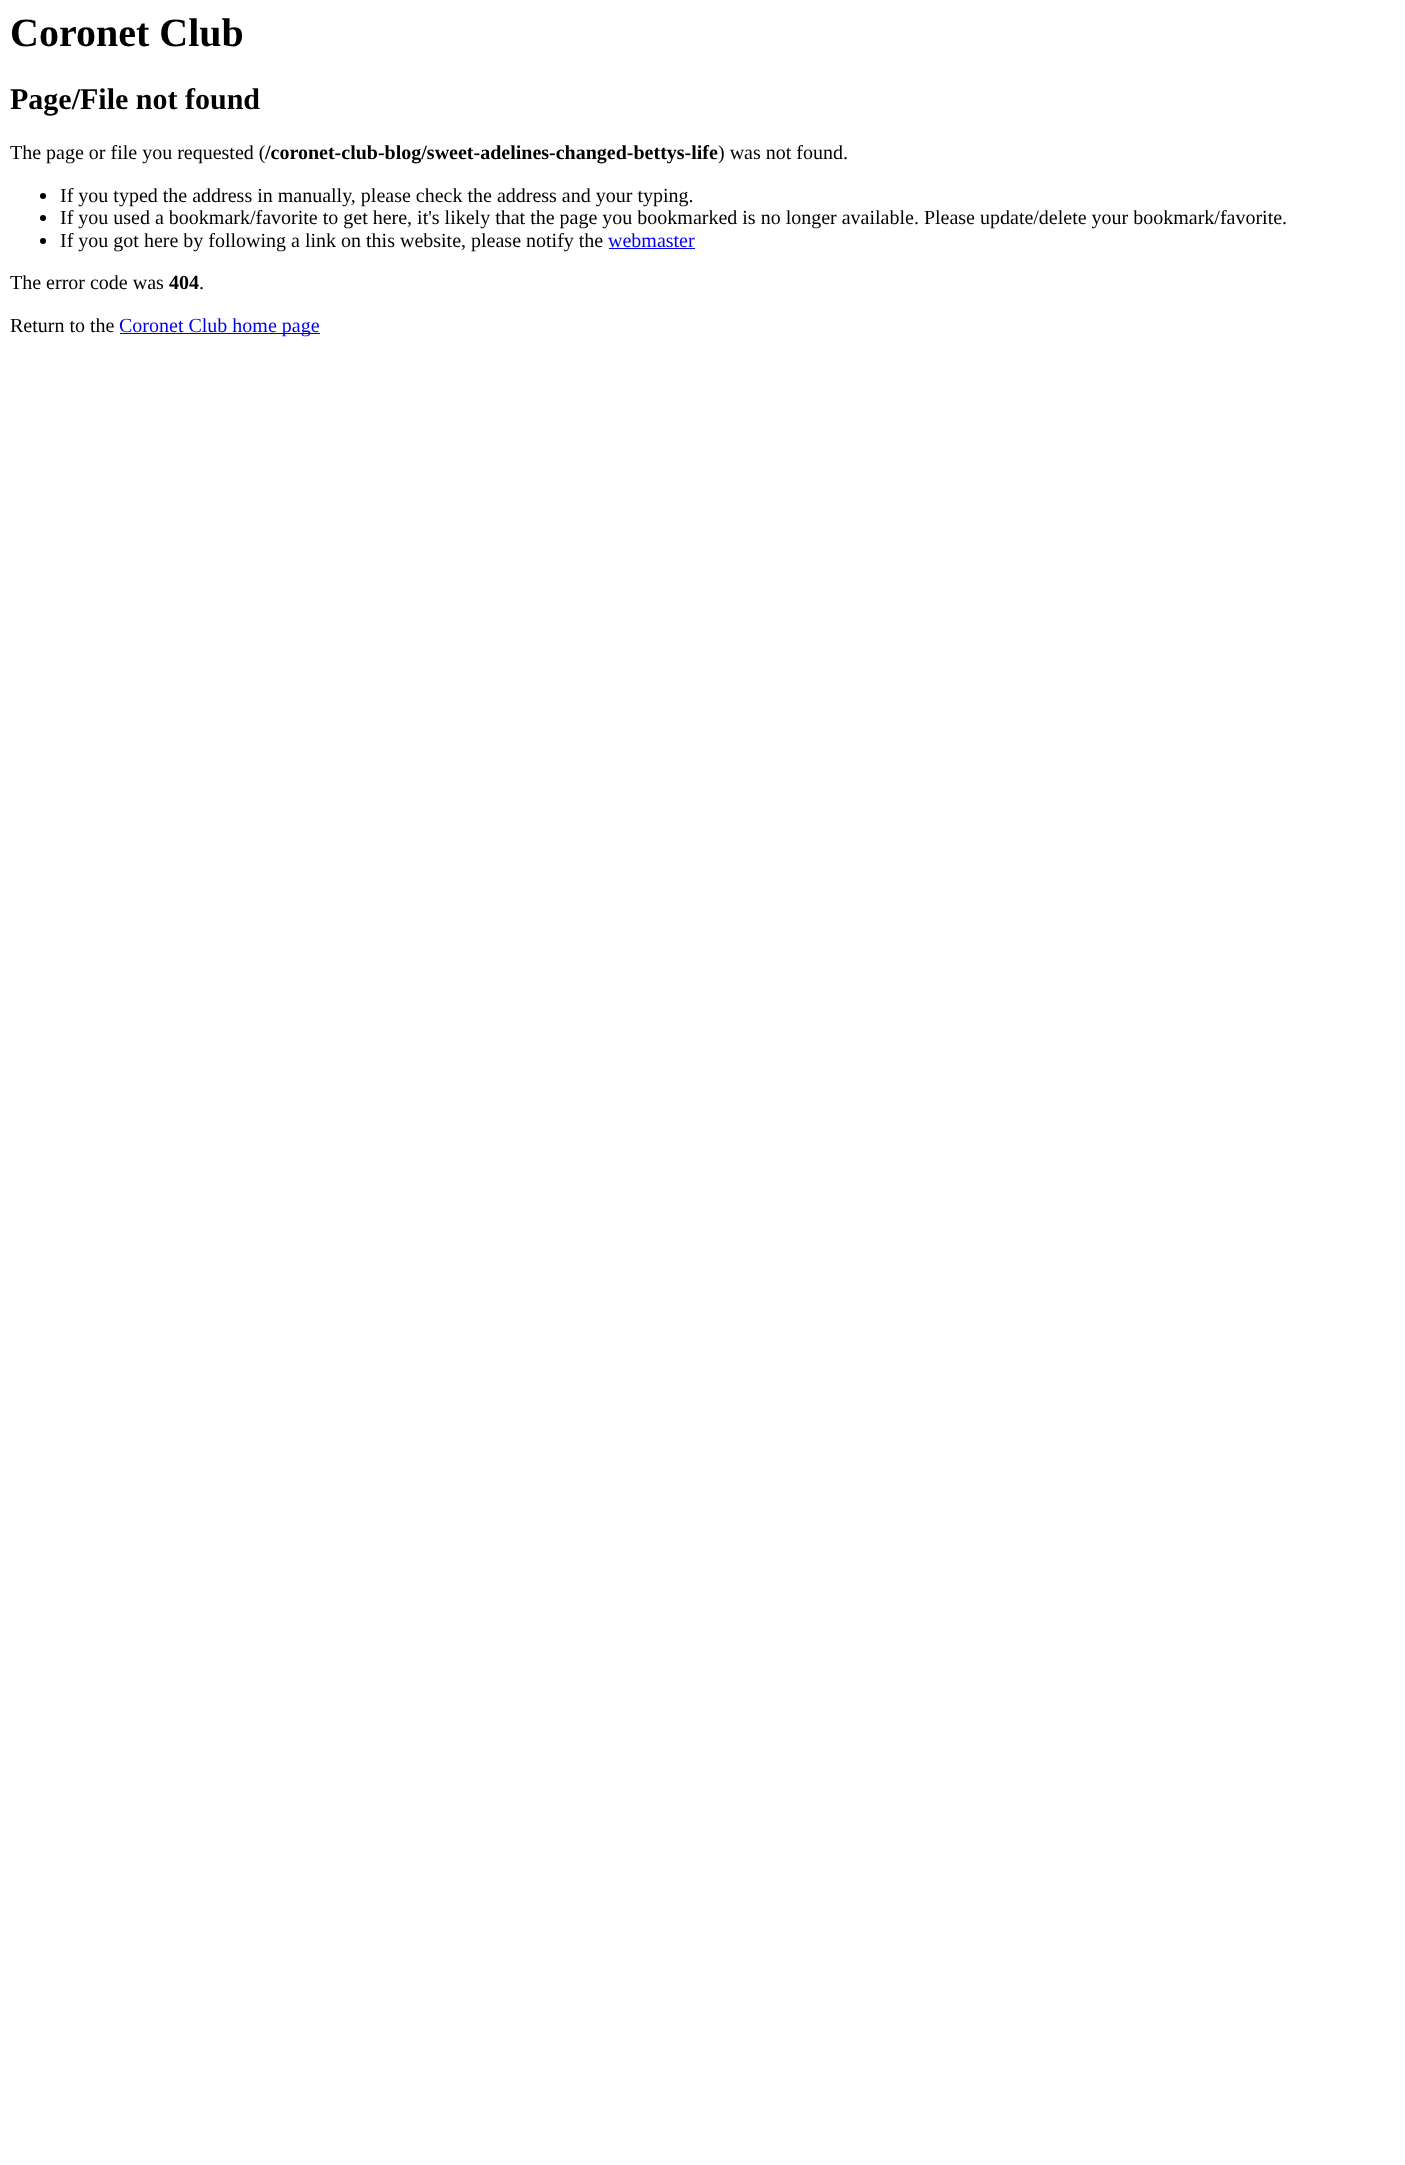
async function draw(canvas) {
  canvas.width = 1405;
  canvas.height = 2165;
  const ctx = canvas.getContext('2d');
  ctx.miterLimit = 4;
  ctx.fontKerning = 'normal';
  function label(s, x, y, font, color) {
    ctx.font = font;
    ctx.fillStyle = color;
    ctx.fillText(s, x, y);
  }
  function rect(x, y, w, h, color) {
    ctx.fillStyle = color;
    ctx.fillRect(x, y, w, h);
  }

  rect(0, 0, 1405, 2165, '#fff');
  label('Coronet Club', 10, 46, 'bold 40px Liberation Serif', '#000');
  label('Page/File not found', 10, 109, 'bold 30px Liberation Serif', '#000');
  label('The page or file you requested (', 10, 159, '20px Liberation Serif', '#000');
  label('/coronet-club-blog/sweet-adelines-changed-bettys-life', 265, 159, 'bold 20px Liberation Serif', '#000');
  label(') was not found.', 718, 159, '20px Liberation Serif', '#000');
  ctx.beginPath();
  ctx.arc(43, 196, 3, 0, 2 * Math.PI);
  ctx.fill();
  label('If you typed the address in manually, please check the address and your typing.', 60, 202, '20px Liberation Serif', '#000');
  ctx.beginPath();
  ctx.arc(43, 218, 3, 0, 2 * Math.PI);
  ctx.fill();
  label('If you used a bookmark/favorite to get here, it\'s likely that the page you bookmarked is no longer available. Please update/delete your bookmark/favorite.', 60, 224, '20px Liberation Serif', '#000');
  ctx.beginPath();
  ctx.arc(43, 241, 3, 0, 2 * Math.PI);
  ctx.fill();
  label('If you got here by following a link on this website, please notify the', 60, 247, '20px Liberation Serif', '#000');
  label('webmaster', 608, 247, '20px Liberation Serif', '#00e');
  rect(609, 248, 86, 1, '#00e');
  label('The error code was', 10, 289, '20px Liberation Serif', '#000');
  label('404', 169, 289, 'bold 20px Liberation Serif', '#000');
  label('.', 199, 289, '20px Liberation Serif', '#000');
  label('Return to the', 10, 332, '20px Liberation Serif', '#000');
  rect(120, 333, 200, 1, '#00e');
  label('Coronet Club home page', 119, 332, '20px Liberation Serif', '#00e');
}

draw(document.querySelector('canvas'));
